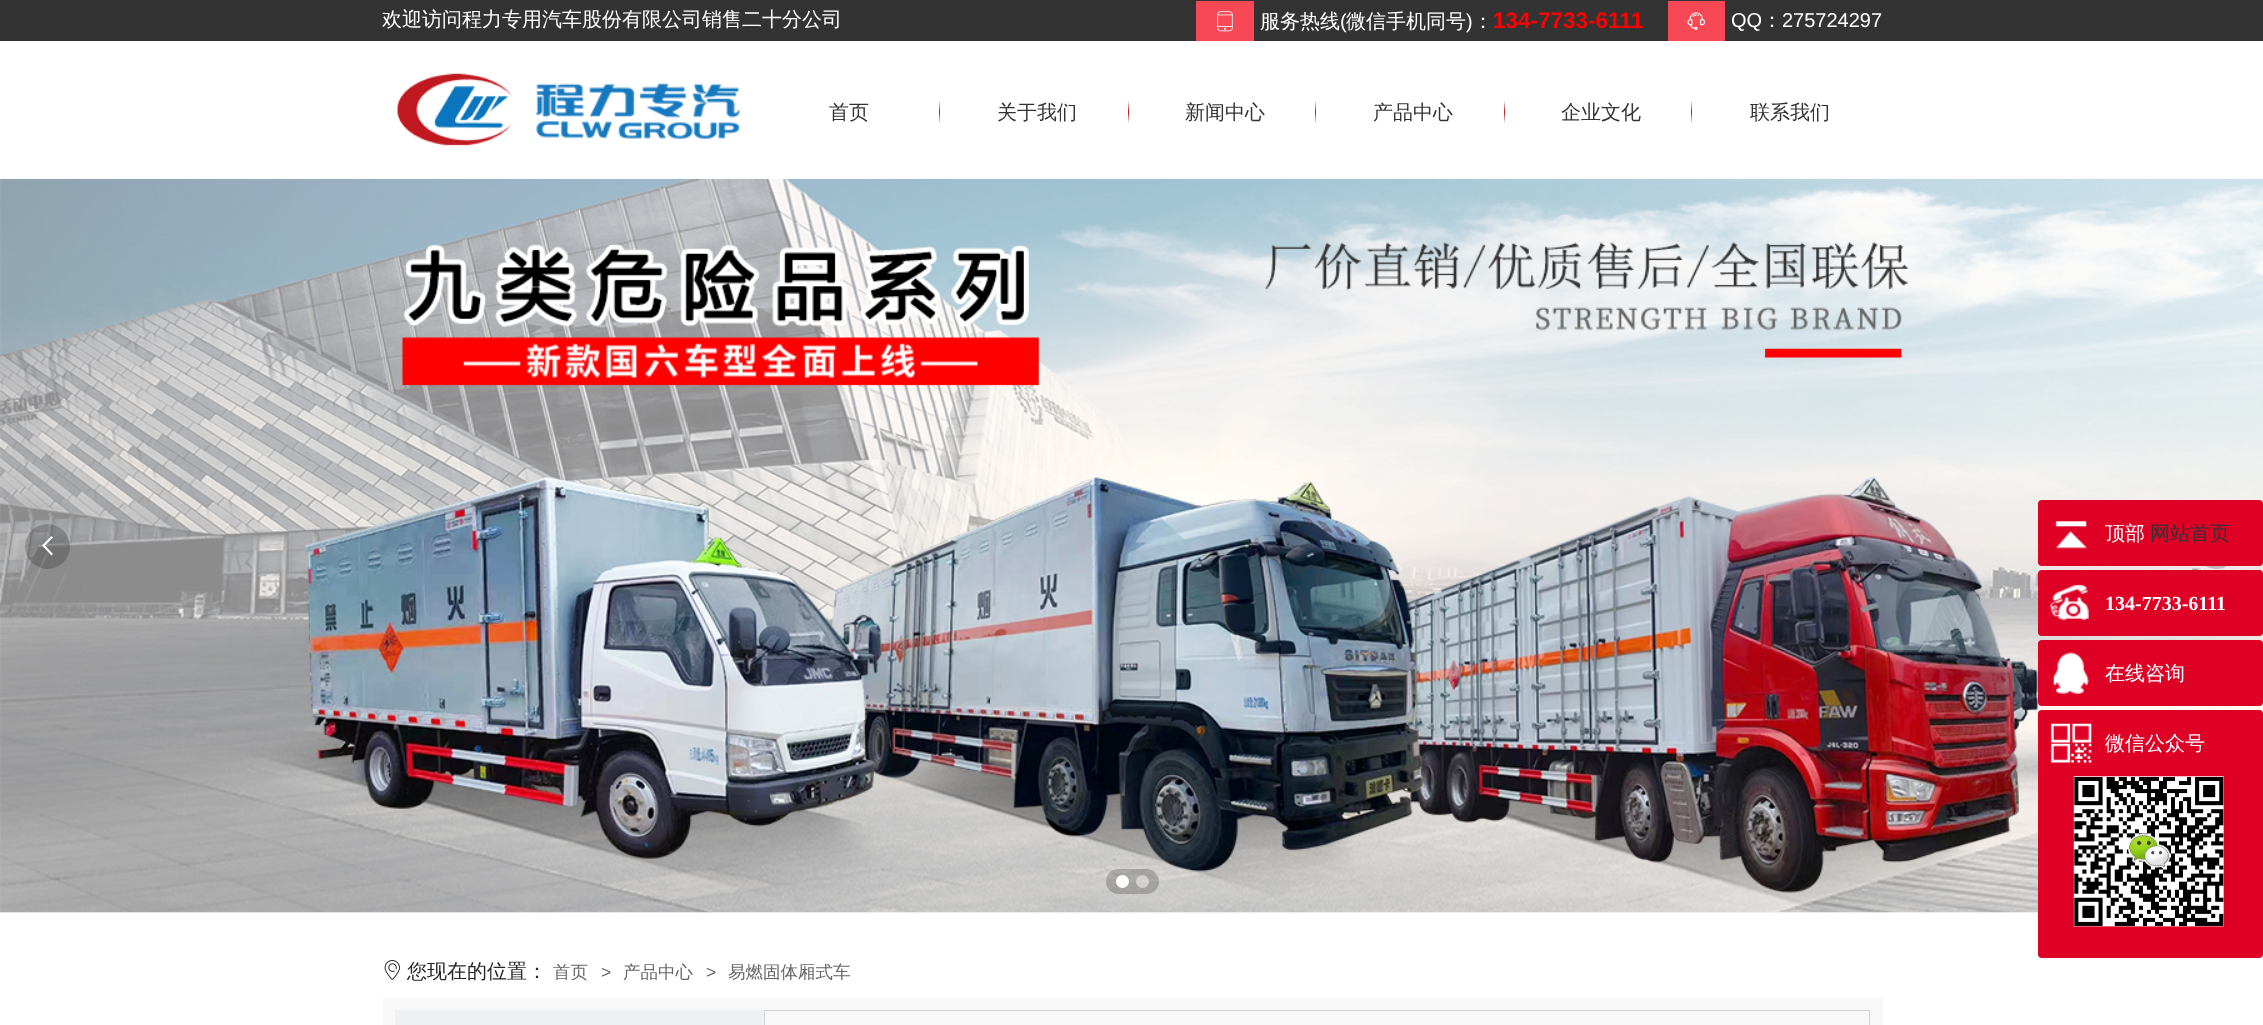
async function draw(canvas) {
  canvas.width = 2263;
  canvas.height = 1025;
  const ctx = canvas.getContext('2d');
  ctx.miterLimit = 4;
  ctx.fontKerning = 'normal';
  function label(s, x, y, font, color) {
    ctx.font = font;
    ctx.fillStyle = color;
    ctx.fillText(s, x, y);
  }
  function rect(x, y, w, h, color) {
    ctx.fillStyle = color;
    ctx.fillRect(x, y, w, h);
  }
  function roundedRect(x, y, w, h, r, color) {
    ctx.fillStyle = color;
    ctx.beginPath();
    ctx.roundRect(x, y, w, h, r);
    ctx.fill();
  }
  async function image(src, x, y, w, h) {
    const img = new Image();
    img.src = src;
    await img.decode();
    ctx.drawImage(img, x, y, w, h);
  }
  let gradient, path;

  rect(0, 0, 2263, 1025, '#fff');
  rect(0, 0, 2263, 41, '#333');
  label('欢迎访问程力专用汽车股份有限公司销售二十分公司', 382, 26, '500 20px WenQuanYi Zen Hei', '#fff');
  rect(1196, 1, 58, 40, '#f94855');
  await image('assets/img1.png', 1217, 11, 16, 21);
  label('服务热线', 1260, 28, '500 20px WenQuanYi Zen Hei', '#fff');
  label('(', 1340, 28, '20px Liberation Sans', '#fff');
  label('微信手机同号', 1346, 28, '500 20px WenQuanYi Zen Hei', '#fff');
  label(')', 1466, 28, '20px Liberation Sans', '#fff');
  label('：', 1473, 28, '500 20px WenQuanYi Zen Hei', '#fff');
  label('134-7733-6111', 1493, 28, 'bold 22.5px Liberation Sans', '#f00');
  rect(1668, 1, 57, 40, '#f94855');
  await image('assets/img2.png', 1687, 12, 18, 18);
  label('QQ', 1731, 27, '20px Liberation Sans', '#fff');
  label('：', 1762, 27, '500 20px WenQuanYi Zen Hei', '#fff');
  label('275724297', 1782, 27, '20px Liberation Sans', '#fff');
  await image('assets/img3.png', 397, 73, 344, 73);
  label('首页', 829, 119, '500 20px WenQuanYi Zen Hei', '#333');
  gradient = ctx.createLinearGradient(939, 171, 939, 53);
  gradient.addColorStop(0.4, '#fff');
  gradient.addColorStop(0.5, '#b80815');
  gradient.addColorStop(0.6, '#fff');
  ctx.fillStyle = gradient;
  ctx.fillRect(939, 100, 1, 24);
  label('关于我们', 997, 119, '500 20px WenQuanYi Zen Hei', '#333');
  gradient = ctx.createLinearGradient(1128, 171, 1128, 53);
  gradient.addColorStop(0.4, '#fff');
  gradient.addColorStop(0.5, '#b80815');
  gradient.addColorStop(0.6, '#fff');
  ctx.fillStyle = gradient;
  ctx.fillRect(1128, 100, 1, 24);
  label('新闻中心', 1185, 119, '500 20px WenQuanYi Zen Hei', '#333');
  gradient = ctx.createLinearGradient(1316, 171, 1316, 53);
  gradient.addColorStop(0.4, '#fff');
  gradient.addColorStop(0.5, '#b80815');
  gradient.addColorStop(0.6, '#fff');
  ctx.fillStyle = gradient;
  ctx.fillRect(1315, 100, 1, 24);
  label('产品中心', 1373, 119, '500 20px WenQuanYi Zen Hei', '#333');
  gradient = ctx.createLinearGradient(1504, 171, 1504, 53);
  gradient.addColorStop(0.4, '#fff');
  gradient.addColorStop(0.5, '#b80815');
  gradient.addColorStop(0.6, '#fff');
  ctx.fillStyle = gradient;
  ctx.fillRect(1504, 100, 1, 24);
  label('企业文化', 1561, 119, '500 20px WenQuanYi Zen Hei', '#333');
  gradient = ctx.createLinearGradient(1692, 171, 1692, 53);
  gradient.addColorStop(0.4, '#fff');
  gradient.addColorStop(0.5, '#b80815');
  gradient.addColorStop(0.6, '#fff');
  ctx.fillStyle = gradient;
  ctx.fillRect(1691, 100, 1, 24);
  label('联系我们', 1750, 119, '500 20px WenQuanYi Zen Hei', '#333');
  rect(0, 912, 2038, 1, '#f8f8f8');
  await image('assets/img4.png', 0, 178, 2263, 735);
  ctx.fillStyle = '#00000033';
  ctx.beginPath();
  ctx.arc(47.5, 546.5, 22.5, 0, 2 * Math.PI);
  ctx.fill();
  ctx.fillStyle = '#fff';
  path = new Path2D('M53 537.5L51.5 536L42 545.5L51.5 555.5L53 554L45 545.5Z');
  ctx.fill(path);
  ctx.fillStyle = '#00000033';
  ctx.beginPath();
  ctx.arc(2216.5, 546.5, 22.5, 0, 2 * Math.PI);
  ctx.fill();
  roundedRect(1106, 869, 53, 25, 12.5, '#00000033');
  ctx.fillStyle = '#fff';
  ctx.beginPath();
  ctx.arc(1122.5, 881.5, 6.5, 0, 2 * Math.PI);
  ctx.fill();
  ctx.fillStyle = '#ffffff80';
  ctx.beginPath();
  ctx.arc(1142.5, 881.5, 6.5, 0, 2 * Math.PI);
  ctx.fill();
  roundedRect(2038, 500, 225, 66, 4, '#de0025');
  await image('assets/img5.png', 2055, 521, 32, 28);
  label('顶部', 2105, 540, '500 20px WenQuanYi Zen Hei', '#fff');
  label('网站首页', 2150, 540, '500 20px WenQuanYi Zen Hei', '#333');
  roundedRect(2038, 570, 225, 66, 4, '#de0025');
  await image('assets/img6.png', 2049, 584, 40, 37);
  label('134-7733-6111', 2105, 610, 'bold 20px Liberation Serif', '#fff');
  roundedRect(2038, 640, 225, 66, 4, '#de0025');
  await image('assets/img7.png', 2053, 652, 36, 42);
  label('在线咨询', 2105, 680, '500 20px WenQuanYi Zen Hei', '#fff');
  roundedRect(2038, 710, 225, 248, 4, '#de0025');
  await image('assets/img8.png', 2050, 723, 43, 40);
  label('微信公众号', 2105, 750, '500 20px WenQuanYi Zen Hei', '#fff');
  await image('assets/img9.png', 2073, 776, 151, 151);
  await image('assets/img10.png', 384, 960, 16, 20);
  label('您现在的位置：', 407, 978, '500 20px WenQuanYi Zen Hei', '#262626');
  label('首页', 553, 978, '500 17.5px WenQuanYi Zen Hei', '#666');
  label('>', 601, 978, '17.5px Liberation Sans', '#666');
  label('产品中心', 623, 978, '500 17.5px WenQuanYi Zen Hei', '#666');
  label('>', 706, 978, '17.5px Liberation Sans', '#666');
  label('易燃固体厢式车', 728, 978, '500 17.5px WenQuanYi Zen Hei', '#666');
  rect(383, 998, 1500, 27, '#f8f8f8');
  rect(395, 1010, 369, 15, '#eff0f2');
  ctx.strokeStyle = '#d4d4d4';
  ctx.strokeRect(764.5, 1010.5, 1105, 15);
}

draw(document.querySelector('canvas'));
